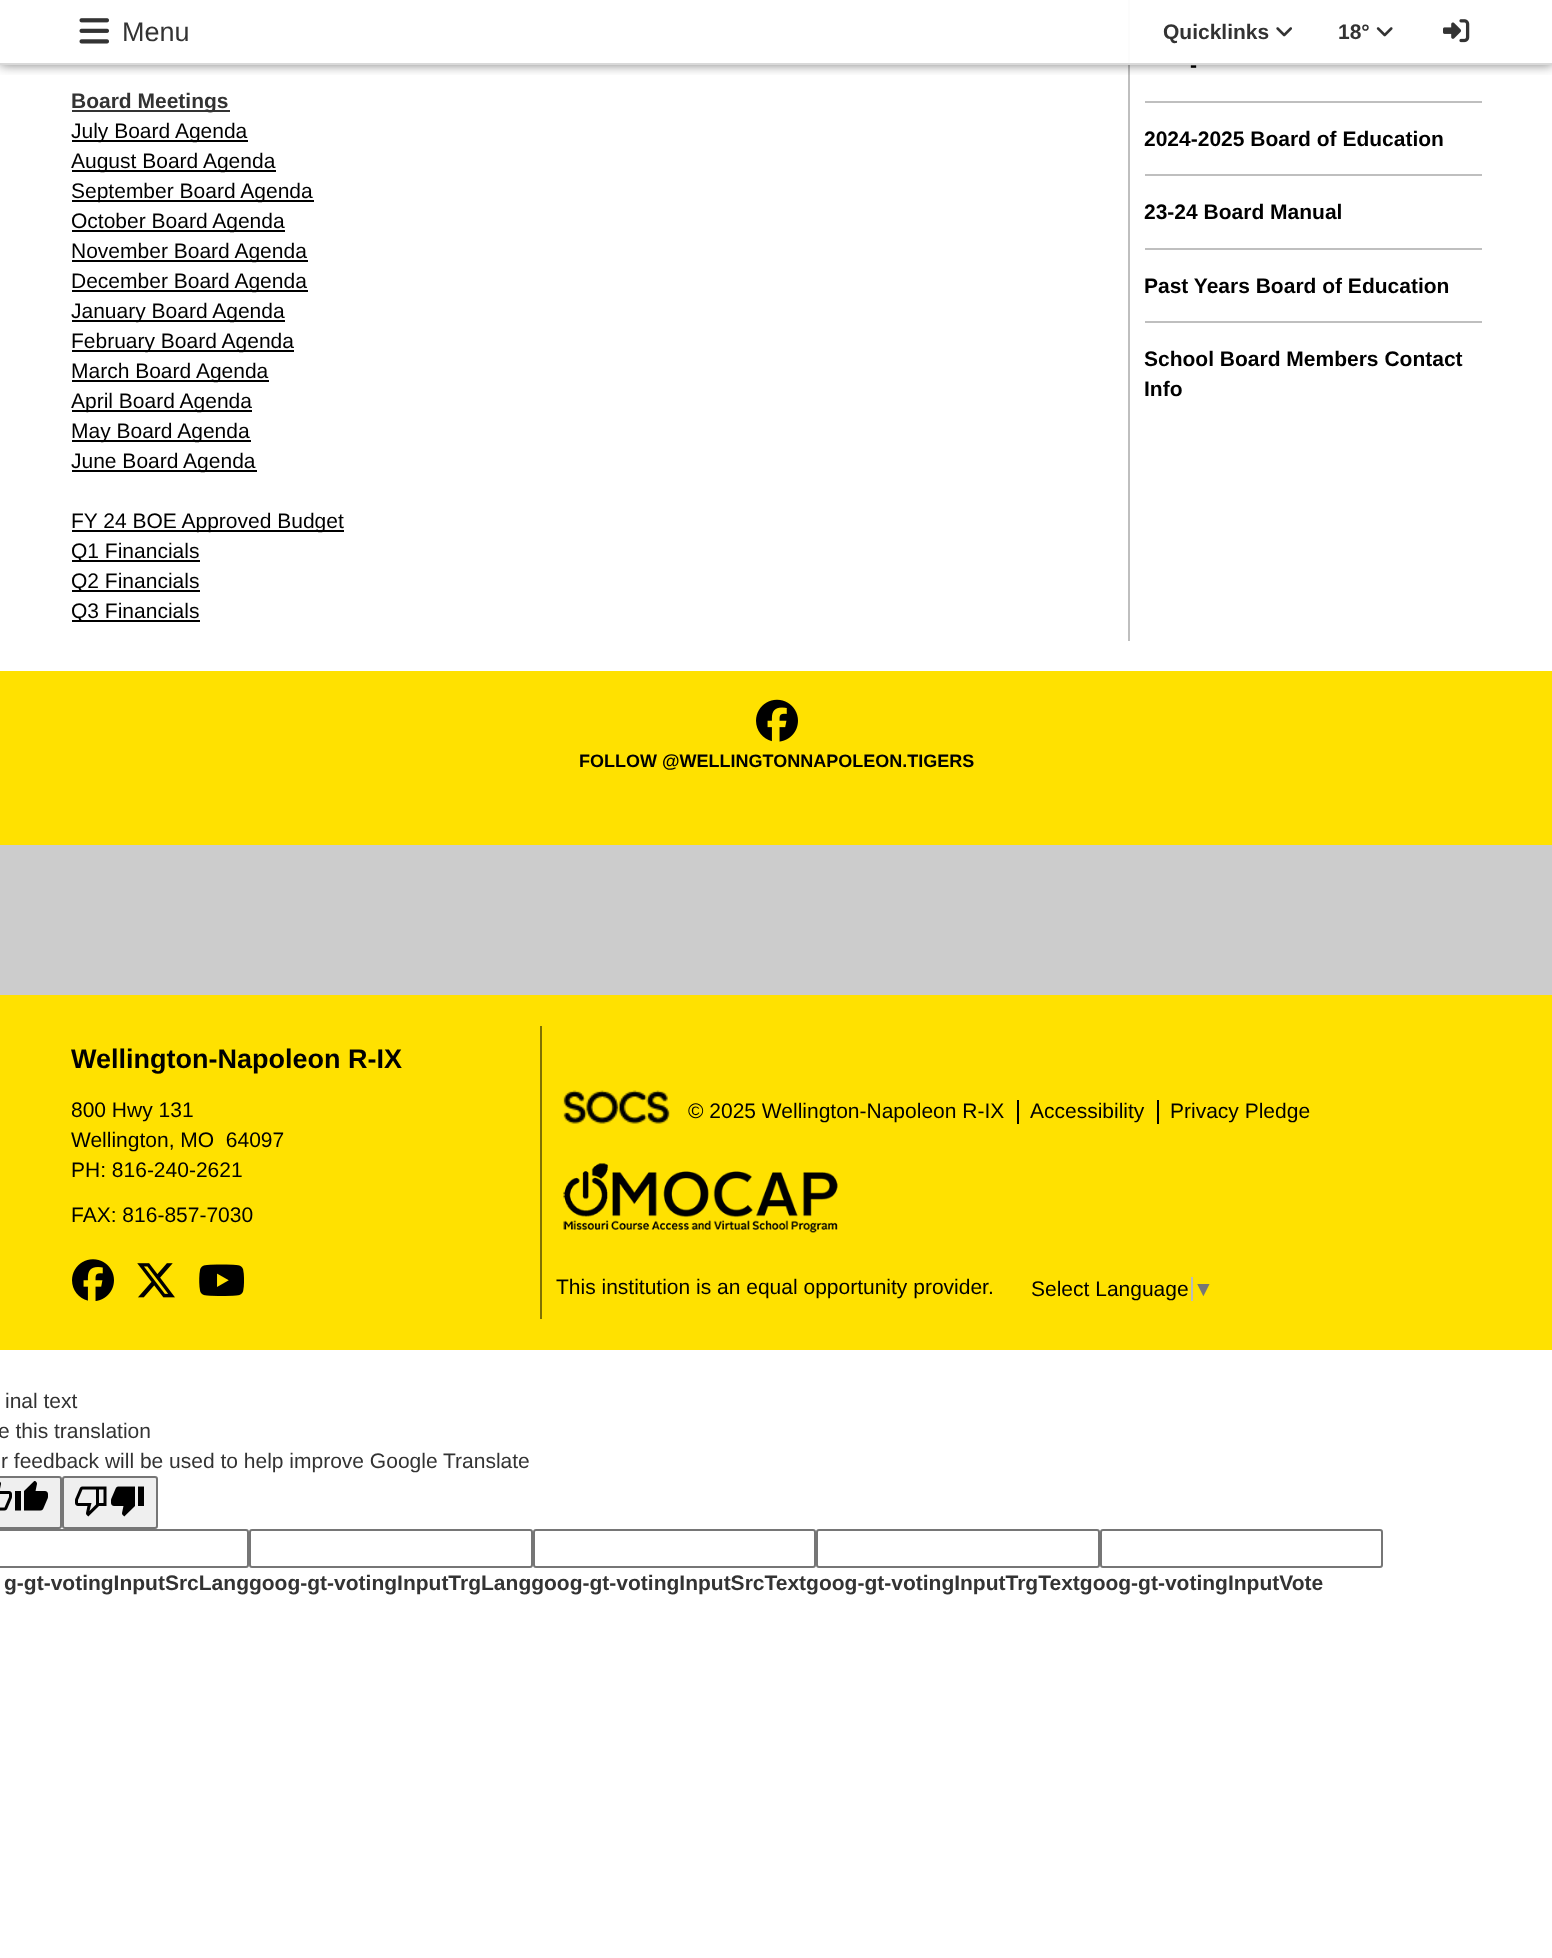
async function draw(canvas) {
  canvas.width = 1552;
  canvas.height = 1958;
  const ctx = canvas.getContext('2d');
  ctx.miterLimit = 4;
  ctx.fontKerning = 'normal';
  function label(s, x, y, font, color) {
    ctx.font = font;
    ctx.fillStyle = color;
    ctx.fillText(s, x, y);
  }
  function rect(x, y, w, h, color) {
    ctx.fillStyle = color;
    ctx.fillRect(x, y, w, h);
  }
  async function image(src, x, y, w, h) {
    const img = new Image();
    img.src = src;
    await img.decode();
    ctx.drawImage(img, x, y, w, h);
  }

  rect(0, 0, 1552, 1958, '#fff');
  rect(1128, 0, 2, 641, '#bfbfbf');
  ctx.save();
  ctx.beginPath();
  ctx.rect(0, 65, 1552, 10);
  ctx.clip();
  ctx.fillStyle = '#00000080';
  ctx.filter = 'blur(6px)';
  ctx.beginPath();
  ctx.rect(0, 0, 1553, 65);
  ctx.fill();
  ctx.filter = 'none';
  ctx.restore();
  rect(1128, 0, 2, 63, '#fffffff2');
  rect(0, 63, 1552, 2, '#d9d9d9');
  await image('assets/img1.png', 79, 18, 30, 26);
  label('Menu', 122, 41, '27px Liberation Sans', '#333');
  label('Quicklinks', 1163, 39, 'bold 21px Liberation Sans', '#333');
  await image('assets/img2.png', 1276, 27, 16, 10);
  label('18°', 1338, 39, 'bold 21px Liberation Sans', '#333');
  await image('assets/img3.png', 1376, 27, 17, 10);
  await image('assets/img4.png', 1443, 19, 27, 24);
  rect(72, 110, 158, 2, '#333');
  label('Board Meetings', 71, 108, 'bold 21px Liberation Sans', '#333');
  rect(72, 140, 176, 2, '#000');
  label('July Board Agenda', 71, 138, '21px Liberation Sans', '#000');
  rect(72, 170, 204, 2, '#000');
  label('August Board Agenda', 71, 168, '21px Liberation Sans', '#000');
  rect(72, 200, 242, 2, '#000');
  label('September Board Agenda', 71, 198, '21px Liberation Sans', '#000');
  rect(72, 230, 213, 2, '#000');
  label('October Board Agenda', 71, 228, '21px Liberation Sans', '#000');
  rect(72, 260, 236, 2, '#000');
  label('November Board Agenda', 71, 258, '21px Liberation Sans', '#000');
  rect(72, 290, 236, 2, '#000');
  label('December Board Agenda', 71, 288, '21px Liberation Sans', '#000');
  rect(72, 320, 213, 2, '#000');
  label('January Board Agenda', 71, 318, '21px Liberation Sans', '#000');
  rect(72, 350, 222, 2, '#000');
  label('February Board Agenda', 71, 348, '21px Liberation Sans', '#000');
  rect(72, 380, 197, 2, '#000');
  label('March Board Agenda', 71, 378, '21px Liberation Sans', '#000');
  rect(72, 410, 180, 2, '#000');
  label('April Board Agenda', 71, 408, '21px Liberation Sans', '#000');
  rect(72, 440, 179, 2, '#000');
  label('May Board Agenda', 71, 438, '21px Liberation Sans', '#000');
  rect(72, 470, 185, 2, '#000');
  label('June Board Agenda', 71, 468, '21px Liberation Sans', '#000');
  rect(72, 530, 272, 2, '#000');
  label('FY 24 BOE Approved Budget', 71, 528, '21px Liberation Sans', '#000');
  rect(72, 560, 128, 2, '#000');
  label('Q1 Financials', 71, 558, '21px Liberation Sans', '#000');
  rect(72, 590, 128, 2, '#000');
  label('Q2 Financials', 71, 588, '21px Liberation Sans', '#000');
  rect(72, 620, 128, 2, '#000');
  label('Q3 Financials', 71, 618, '21px Liberation Sans', '#000');
  label('-', 1190, 72, 'bold 21px Liberation Sans', '#000');
  rect(1145, 101, 337, 2, '#bfbfbf');
  label('2024-2025 Board of Education', 1144, 146, 'bold 21px Liberation Sans', '#000');
  rect(1145, 174, 337, 2, '#bfbfbf');
  label('23-24 Board Manual', 1144, 219, 'bold 21px Liberation Sans', '#000');
  rect(1145, 248, 337, 2, '#bfbfbf');
  label('Past Years Board of Education', 1144, 293, 'bold 21px Liberation Sans', '#000');
  rect(1145, 321, 337, 2, '#bfbfbf');
  label('School Board Members Contact', 1144, 366, 'bold 21px Liberation Sans', '#000');
  label('Info', 1144, 396, 'bold 21px Liberation Sans', '#000');
  rect(0, 671, 1552, 174, '#ffe100');
  await image('assets/img5.png', 756, 699, 42, 43);
  label('FOLLOW @WELLINGTONNAPOLEON.TIGERS', 579, 767, 'bold 18px Liberation Sans', '#000');
  rect(0, 845, 1552, 150, '#ccc');
  rect(0, 995, 1552, 355, '#ffe100');
  rect(540, 1026, 2, 293, '#807100');
  label('Wellington-Napoleon R-IX', 71, 1068, 'bold 27px Liberation Sans', '#000');
  label('800 Hwy 131', 71, 1117, '21px Liberation Sans', '#000');
  label('Wellington, MO  64097', 71, 1147, '21px Liberation Sans', '#000');
  label('PH: 816-240-2621', 71, 1177, '21px Liberation Sans', '#000');
  label('FAX: 816-857-7030', 71, 1222, '21px Liberation Sans', '#000');
  await image('assets/img6.png', 72, 1259, 42, 42);
  await image('assets/img7.png', 137, 1263, 38, 35);
  await image('assets/img8.png', 199, 1264, 45, 32);
  await image('assets/img9.png', 563, 1090, 107, 34);
  label('© 2025 Wellington-Napoleon R-IX', 688, 1118, '21px Liberation Sans', '#000');
  label('Accessibility', 1030, 1118, '21px Liberation Sans', '#000');
  rect(1017, 1100, 2, 24, '#000');
  label('Privacy Pledge', 1170, 1118, '21px Liberation Sans', '#000');
  rect(1157, 1100, 2, 24, '#000');
  await image('assets/img10.png', 563, 1163, 275, 70);
  label('This institution is an equal opportunity provider.', 556, 1294, '21px Liberation Sans', '#000');
  label('Select Language', 1031, 1296, '21px Liberation Sans', '#000');
  rect(1191, 1277, 2, 24, '#bbb');
  label('▼', 1193, 1296, '21px Liberation Sans', '#767676');
  label('inal text', 5, 1408, '21px Liberation Sans', '#333');
  label('e this translation', -2, 1438, '21px Liberation Sans', '#333');
  label('r feedback will be used to help improve Google Translate', 1, 1468, '21px Liberation Sans', '#333');
  ctx.fillStyle = '#efefef';
  ctx.beginPath();
  ctx.roundRect(-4, 1477, 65, 51, 2);
  ctx.fill();
  ctx.strokeStyle = '#767676';
  ctx.lineWidth = 2;
  ctx.stroke();
  await image('assets/img11.png', 0, 1481, 12, 30);
  await image('assets/img12.png', 15, 1481, 33, 30);
  ctx.beginPath();
  ctx.roundRect(63, 1477, 94, 51, 2);
  ctx.fill();
  ctx.stroke();
  await image('assets/img13.png', 75, 1486, 32, 31);
  await image('assets/img14.png', 111, 1486, 33, 31);
  ctx.beginPath();
  ctx.roundRect(-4, 1530, 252, 37, 2);
  ctx.stroke();
  ctx.beginPath();
  ctx.roundRect(250, 1530, 282, 37, 2);
  ctx.stroke();
  ctx.beginPath();
  ctx.roundRect(534, 1530, 281, 37, 2);
  ctx.stroke();
  ctx.beginPath();
  ctx.roundRect(817, 1530, 282, 37, 2);
  ctx.stroke();
  ctx.beginPath();
  ctx.roundRect(1101, 1530, 281, 37, 2);
  ctx.stroke();
  label('g-gt-votingInputSrcLanggoog-gt-votingInputTrgLanggoog-gt-votingInputSrcTextgoog-gt-votingInputTrgTextgoog-gt-votingInputVote', 4, 1590, 'bold 21px Liberation Sans', '#333');
}

draw(document.querySelector('canvas'));
